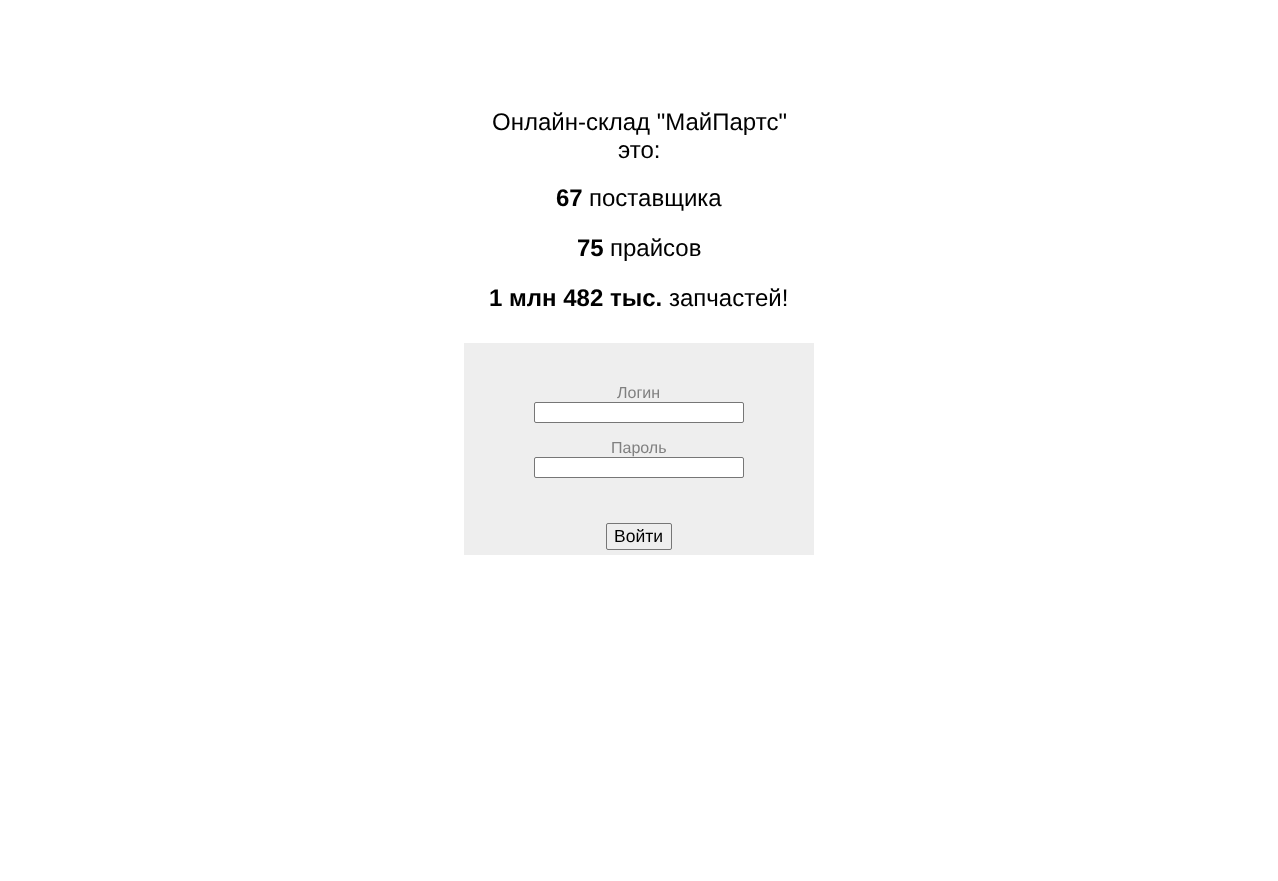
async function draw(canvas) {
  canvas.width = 1278;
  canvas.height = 881;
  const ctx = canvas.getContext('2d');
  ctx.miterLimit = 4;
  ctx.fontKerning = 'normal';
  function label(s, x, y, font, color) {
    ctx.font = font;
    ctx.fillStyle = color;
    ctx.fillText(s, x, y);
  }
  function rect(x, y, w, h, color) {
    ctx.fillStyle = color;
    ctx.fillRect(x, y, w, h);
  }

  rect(0, 0, 1278, 881, '#fff');
  label('Онлайн-склад "МайПартс"', 492, 130, '24px Liberation Sans', '#000');
  label('это:', 618, 158, '24px Liberation Sans', '#000');
  label('67', 556, 206, 'bold 24px Liberation Sans', '#000');
  label('поставщика', 589, 206, '24px Liberation Sans', '#000');
  label('75', 577, 256, 'bold 24px Liberation Sans', '#000');
  label('прайсов', 610, 256, '24px Liberation Sans', '#000');
  label('1 млн 482 тыс.', 489, 306, 'bold 24px Liberation Sans', '#000');
  label('запчастей!', 669, 306, '24px Liberation Sans', '#000');
  rect(464, 343, 350, 212, '#eee');
  label('Логин', 617, 398, '16px Liberation Sans', '#808080');
  ctx.fillStyle = '#fff';
  ctx.beginPath();
  ctx.roundRect(534.5, 402.5, 209, 20, 1.5);
  ctx.fill();
  ctx.strokeStyle = '#767676';
  ctx.stroke();
  label('Пароль', 611, 453, '16px Liberation Sans', '#808080');
  ctx.fillStyle = '#fff';
  ctx.beginPath();
  ctx.roundRect(534.5, 457.5, 209, 20, 1.5);
  ctx.fill();
  ctx.stroke();
  ctx.beginPath();
  ctx.roundRect(606.5, 523.5, 65, 26, 1.5);
  ctx.stroke();
  label('Войти', 614, 542, '17.5px Liberation Sans', '#000');
}

draw(document.querySelector('canvas'));
